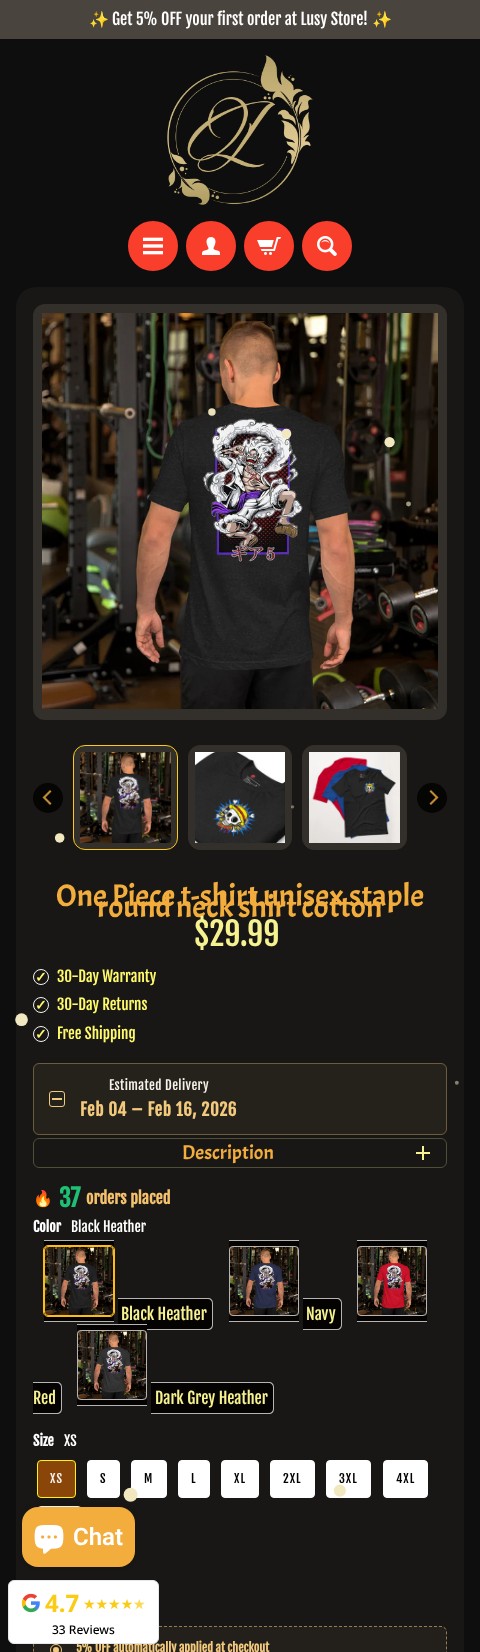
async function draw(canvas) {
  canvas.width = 480;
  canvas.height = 1652;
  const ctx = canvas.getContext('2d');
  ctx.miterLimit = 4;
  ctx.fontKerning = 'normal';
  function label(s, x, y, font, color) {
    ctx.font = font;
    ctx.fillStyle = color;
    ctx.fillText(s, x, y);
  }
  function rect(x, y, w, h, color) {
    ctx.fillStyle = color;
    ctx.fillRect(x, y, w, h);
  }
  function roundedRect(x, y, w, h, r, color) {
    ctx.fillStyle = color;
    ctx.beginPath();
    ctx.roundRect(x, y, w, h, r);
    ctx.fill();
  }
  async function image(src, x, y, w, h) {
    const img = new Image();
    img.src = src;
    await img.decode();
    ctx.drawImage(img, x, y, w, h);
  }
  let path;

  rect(0, 0, 480, 1652, '#0e0e0e');
  rect(0, 0, 480, 39, '#49443d');
  label('✨', 89, 25, '16px Noto Color Emoji', '#fff');
  label('Get 5% OFF your first order at Lusy Store!', 112, 25, '16px Fjalla One', '#fff');
  label('✨', 372, 25, '16px Noto Color Emoji', '#fff');
  await image('assets/img1.png', 167, 55, 146, 150);
  ctx.fillStyle = '#fa3e2c';
  ctx.beginPath();
  ctx.arc(153, 246, 23.5, 0, 2 * Math.PI);
  ctx.fill();
  ctx.strokeStyle = '#fa3e2c';
  ctx.lineWidth = 3;
  ctx.stroke();
  await image('assets/img2.png', 143, 237, 20, 18);
  ctx.beginPath();
  ctx.arc(211, 246, 23.5, 0, 2 * Math.PI);
  ctx.fill();
  ctx.stroke();
  await image('assets/img3.png', 202, 237, 18, 18);
  ctx.beginPath();
  ctx.arc(269, 246, 23.5, 0, 2 * Math.PI);
  ctx.fill();
  ctx.stroke();
  await image('assets/img4.png', 257, 237, 24, 18);
  ctx.beginPath();
  ctx.arc(327, 246, 23.5, 0, 2 * Math.PI);
  ctx.fill();
  ctx.stroke();
  await image('assets/img5.png', 317, 236, 20, 20);
  roundedRect(16, 287, 448, 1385, 20, '#181716');
  roundedRect(33, 304, 414, 416, 12, '#33302b');
  await image('assets/img6.png', 42, 313, 396, 396);
  ctx.fillStyle = '#050504';
  ctx.beginPath();
  ctx.arc(48, 798, 15, 0, 2 * Math.PI);
  ctx.fill();
  await image('assets/img7.png', 42, 790, 10, 15);
  ctx.fillStyle = '#33302b';
  ctx.beginPath();
  ctx.roundRect(73.5, 745.5, 104, 104, 11.5);
  ctx.fill();
  ctx.strokeStyle = '#fbc918';
  ctx.lineWidth = 1;
  ctx.stroke();
  await image('assets/img8.png', 80, 752, 91, 91);
  ctx.beginPath();
  ctx.roundRect(188.5, 745.5, 103, 104, 11.5);
  ctx.fill();
  ctx.strokeStyle = '#33302b';
  ctx.stroke();
  await image('assets/img9.png', 195, 752, 90, 91);
  ctx.beginPath();
  ctx.roundRect(302.5, 745.5, 104, 104, 11.5);
  ctx.fill();
  ctx.stroke();
  await image('assets/img10.png', 309, 752, 91, 91);
  ctx.fillStyle = '#050504';
  ctx.beginPath();
  ctx.arc(432, 798, 15, 0, 2 * Math.PI);
  ctx.fill();
  await image('assets/img11.png', 429, 790, 10, 15);
  label('One Piece t-shirt unisex staple', 56, 906, '31.25px Acme', '#f2ad3c');
  label('round neck shirt cotton', 97, 917, '31.25px Acme', '#f2ad3c');
  label('$29.99', 194, 946, '32px Fjalla One', '#f7f290');
  ctx.beginPath();
  ctx.arc(41, 977, 7.5, 0, 2 * Math.PI);
  ctx.strokeStyle = '#f5f5f5';
  ctx.stroke();
  label('✓', 35, 982, 'bold 14px DejaVu Sans', '#fffa6b');
  label('30-Day Warranty', 57, 982, '15px Fjalla One', '#fffa6b');
  ctx.beginPath();
  ctx.arc(41, 1005, 7.5, 0, 2 * Math.PI);
  ctx.stroke();
  label('✓', 35, 1010, 'bold 14px DejaVu Sans', '#fffa6b');
  label('30-Day Returns', 57, 1010, '15px Fjalla One', '#fffa6b');
  ctx.beginPath();
  ctx.arc(41, 1034, 7.5, 0, 2 * Math.PI);
  ctx.stroke();
  label('✓', 35, 1039, 'bold 14px DejaVu Sans', '#fffa6b');
  label('Free Shipping', 57, 1039, '15px Fjalla One', '#fffa6b');
  roundedRect(33, 1063, 414, 72, 6, '#25221c');
  ctx.beginPath();
  ctx.roundRect(33.5, 1063.5, 413, 71, 5.5);
  ctx.strokeStyle = '#f2c97d59';
  ctx.stroke();
  ctx.beginPath();
  ctx.roundRect(49.5, 1091.5, 15, 15, 2.5);
  ctx.strokeStyle = '#f2c97d';
  ctx.stroke();
  rect(52, 1098, 10, 2, '#f2c97d');
  ctx.letterSpacing = '0.4px';
  label('Estimated Delivery', 109, 1090, '13px Fjalla One', '#f5f1e8');
  ctx.letterSpacing = '0.6px';
  label('Feb 04 – Feb 16, 2026', 80, 1116, 'bold 17px Fjalla One', '#f2c97d');
  ctx.beginPath();
  ctx.roundRect(33.5, 1138.5, 413, 29, 5.5);
  ctx.strokeStyle = '#504e35';
  ctx.stroke();
  ctx.letterSpacing = '0px';
  label('Description', 182, 1159, '20px Acme', '#f2ad3c');
  rect(422, 1146, 2, 14, '#f7f290');
  rect(416, 1152, 14, 2, '#f7f290');
  label('🔥', 33, 1204, 'bold 16px Noto Color Emoji', '#f5c16c');
  label('37', 59, 1207, 'bold 24px Fjalla One', '#1fbf75');
  label('orders placed', 86, 1204, 'bold 16px Fjalla One', '#f5c16c');
  label('Color', 33, 1232, 'bold 14px Fjalla One', '#fff');
  label('Black Heather', 71, 1232, '14px Fjalla One', '#fff');
  rect(44, 1241, 70, 80, '#050301');
  rect(44, 1240, 70, 1, '#b6b3b3');
  rect(44, 1321, 70, 1, '#b6b3b3');
  rect(118, 1298, 3, 32, '#050301');
  rect(118, 1298, 3, 1, '#b6b3b3');
  ctx.fillStyle = '#050301';
  ctx.beginPath();
  ctx.roundRect(121, 1298, 92, 32, [0, 5, 5, 0]);
  ctx.fill();
  ctx.fillStyle = '#b6b3b3';
  path = new Path2D('M121 1298H208C211 1298 213 1300 213 1303V1325C213 1328 211 1330 208 1330H121ZM121 1299H208C210 1299 212 1301 212 1303V1325C212 1327 210 1329 208 1329H121Z');
  ctx.fill(path, 'evenodd');
  ctx.beginPath();
  ctx.roundRect(43.5, 1245.5, 71, 71, 4.5);
  ctx.strokeStyle = '#ffbc14';
  ctx.stroke();
  await image('assets/img12.png', 44, 1246, 70, 70);
  ctx.beginPath();
  ctx.roundRect(44.5, 1246.5, 69, 69, 3.5);
  ctx.stroke();
  label('Black Heather', 121, 1320, '16px Fjalla One', '#f7f290');
  rect(229, 1241, 70, 80, '#050301');
  rect(229, 1240, 70, 1, '#b6b3b3');
  rect(229, 1321, 70, 1, '#b6b3b3');
  rect(303, 1298, 3, 32, '#050301');
  rect(303, 1298, 3, 1, '#b6b3b3');
  rect(303, 1329, 3, 1, '#b6b3b3');
  ctx.fillStyle = '#050301';
  ctx.beginPath();
  ctx.roundRect(306, 1298, 36, 32, [0, 5, 5, 0]);
  ctx.fill();
  ctx.fillStyle = '#b6b3b3';
  path = new Path2D('M306 1298H337C340 1298 342 1300 342 1303V1325C342 1328 340 1330 337 1330H306ZM306 1299H337C339 1299 341 1301 341 1303V1325C341 1327 339 1329 337 1329H306Z');
  ctx.fill(path, 'evenodd');
  await image('assets/img13.png', 229, 1246, 70, 70);
  ctx.beginPath();
  ctx.roundRect(229.5, 1246.5, 69, 69, 3.5);
  ctx.strokeStyle = '#b6b3b3';
  ctx.stroke();
  label('Navy', 306, 1320, '16px Fjalla One', '#f7f290');
  rect(357, 1241, 70, 80, '#050301');
  rect(357, 1240, 70, 1, '#b6b3b3');
  rect(357, 1321, 70, 1, '#b6b3b3');
  ctx.fillStyle = '#050301';
  ctx.beginPath();
  ctx.roundRect(33, 1382, 29, 32, [0, 5, 5, 0]);
  ctx.fill();
  ctx.fillStyle = '#b6b3b3';
  path = new Path2D('M33 1382H57C60 1382 62 1384 62 1387V1409C62 1412 60 1414 57 1414H33ZM33 1383H57C59 1383 61 1385 61 1387V1409C61 1411 59 1413 57 1413H33Z');
  ctx.fill(path, 'evenodd');
  await image('assets/img14.png', 357, 1246, 70, 70);
  ctx.beginPath();
  ctx.roundRect(357.5, 1246.5, 69, 69, 3.5);
  ctx.stroke();
  label('Red', 33, 1404, '16px Fjalla One', '#f7f290');
  rect(77, 1325, 70, 80, '#050301');
  rect(77, 1324, 70, 1, '#b6b3b3');
  rect(77, 1405, 70, 1, '#b6b3b3');
  rect(151, 1382, 4, 32, '#050301');
  rect(151, 1382, 4, 1, '#b6b3b3');
  rect(151, 1413, 4, 1, '#b6b3b3');
  ctx.fillStyle = '#050301';
  ctx.beginPath();
  ctx.roundRect(155, 1382, 119, 32, [0, 5, 5, 0]);
  ctx.fill();
  ctx.fillStyle = '#b6b3b3';
  path = new Path2D('M155 1382H269C272 1382 274 1384 274 1387V1409C274 1412 272 1414 269 1414H155ZM155 1383H269C271 1383 273 1385 273 1387V1409C273 1411 271 1413 269 1413H155Z');
  ctx.fill(path, 'evenodd');
  await image('assets/img15.png', 77, 1330, 70, 70);
  ctx.beginPath();
  ctx.roundRect(77.5, 1330.5, 69, 69, 3.5);
  ctx.stroke();
  label('Dark Grey Heather', 155, 1404, '16px Fjalla One', '#f7f290');
  label('Size', 33, 1446, 'bold 14px Fjalla One', '#fff');
  label('XS', 64, 1446, '14px Fjalla One', '#fff');
  ctx.fillStyle = '#8a4609';
  ctx.beginPath();
  ctx.roundRect(37.5, 1460.5, 38, 37, 3.5);
  ctx.fill();
  ctx.strokeStyle = '#fdf214';
  ctx.stroke();
  ctx.letterSpacing = '1px';
  label('XS', 50, 1483, '12px Fjalla One', '#f3f3f3');
  ctx.fillStyle = '#fff';
  ctx.beginPath();
  ctx.roundRect(87.5, 1460.5, 32, 37, 3.5);
  ctx.fill();
  ctx.strokeStyle = '#fff';
  ctx.stroke();
  label('S', 100, 1483, '12px Fjalla One', '#000');
  ctx.fillStyle = '#fff';
  ctx.beginPath();
  ctx.roundRect(131.5, 1460.5, 35, 37, 3.5);
  ctx.fill();
  ctx.stroke();
  label('M', 144, 1483, '12px Fjalla One', '#000');
  ctx.fillStyle = '#fff';
  ctx.beginPath();
  ctx.roundRect(178.5, 1460.5, 31, 37, 3.5);
  ctx.fill();
  ctx.stroke();
  label('L', 191, 1483, '12px Fjalla One', '#000');
  ctx.fillStyle = '#fff';
  ctx.beginPath();
  ctx.roundRect(221.5, 1460.5, 37, 37, 3.5);
  ctx.fill();
  ctx.stroke();
  label('XL', 234, 1483, '12px Fjalla One', '#000');
  ctx.fillStyle = '#fff';
  ctx.beginPath();
  ctx.roundRect(270.5, 1460.5, 44, 37, 3.5);
  ctx.fill();
  ctx.stroke();
  label('2XL', 283, 1483, '12px Fjalla One', '#000');
  ctx.fillStyle = '#fff';
  ctx.beginPath();
  ctx.roundRect(326.5, 1460.5, 44, 37, 3.5);
  ctx.fill();
  ctx.stroke();
  label('3XL', 339, 1483, '12px Fjalla One', '#000');
  ctx.fillStyle = '#fff';
  ctx.beginPath();
  ctx.roundRect(383.5, 1460.5, 44, 37, 3.5);
  ctx.fill();
  ctx.stroke();
  label('4XL', 396, 1483, '12px Fjalla One', '#000');
  ctx.beginPath();
  ctx.roundRect(37.5, 1506.5, 44, 37, 3.5);
  ctx.stroke();
  roundedRect(33, 1626, 414, 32, 6, '#23201b');
  path = new Path2D('M39 1626.5H441C444 1626.5 446.5 1629 446.5 1632V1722C446.5 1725 444 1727.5 441 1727.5H39C36 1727.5 33.5 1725 33.5 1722V1632C33.5 1629 36 1626.5 39 1626.5Z');
  ctx.strokeStyle = '#957d51';
  ctx.setLineDash([3, 2]);
  ctx.stroke(path);
  ctx.beginPath();
  ctx.arc(56, 1650, 5.5, 0, 2 * Math.PI);
  ctx.strokeStyle = '#f2c97d';
  ctx.setLineDash([]);
  ctx.stroke();
  ctx.fillStyle = '#f2c97d';
  ctx.beginPath();
  ctx.arc(56, 1650, 3, 0, 2 * Math.PI);
  ctx.fill();
  ctx.letterSpacing = '0px';
  label('5% OFF automatically applied at checkout', 76, 1652, 'bold 12px Fjalla One', '#f2c97d');
  await image('assets/img16.png', 15, 408, 444, 1094);
  ctx.fillStyle = '#00000026';
  ctx.filter = 'blur(2.5px)';
  ctx.beginPath();
  ctx.roundRect(22, 1507, 113, 60, 16);
  ctx.fill();
  ctx.filter = 'none';
  roundedRect(22, 1507, 113, 60, 16, '#f2ad3c');
  await image('assets/img17.png', 34, 1525, 30, 29);
  label('Chat', 73, 1545, '600 24px Roboto', '#fff');
  ctx.beginPath();
  ctx.roundRect(8.5, 1580.5, 150, 63, 5.5);
  ctx.fill();
  ctx.strokeStyle = '#e5e7eb';
  ctx.stroke();
  await image('assets/img18.png', 21, 1593, 19, 20);
  label('4.7', 45, 1612, 'bold 24px Noto Sans', '#facc15');
  label('★★★★', 83, 1609, '14px DejaVu Sans', '#facc15');
  label('★', 133, 1609, '14px DejaVu Sans', '#fbd950');
  label('33 Reviews', 52, 1634, '500 12px Noto Sans', '#000');
}

draw(document.querySelector('canvas'));
